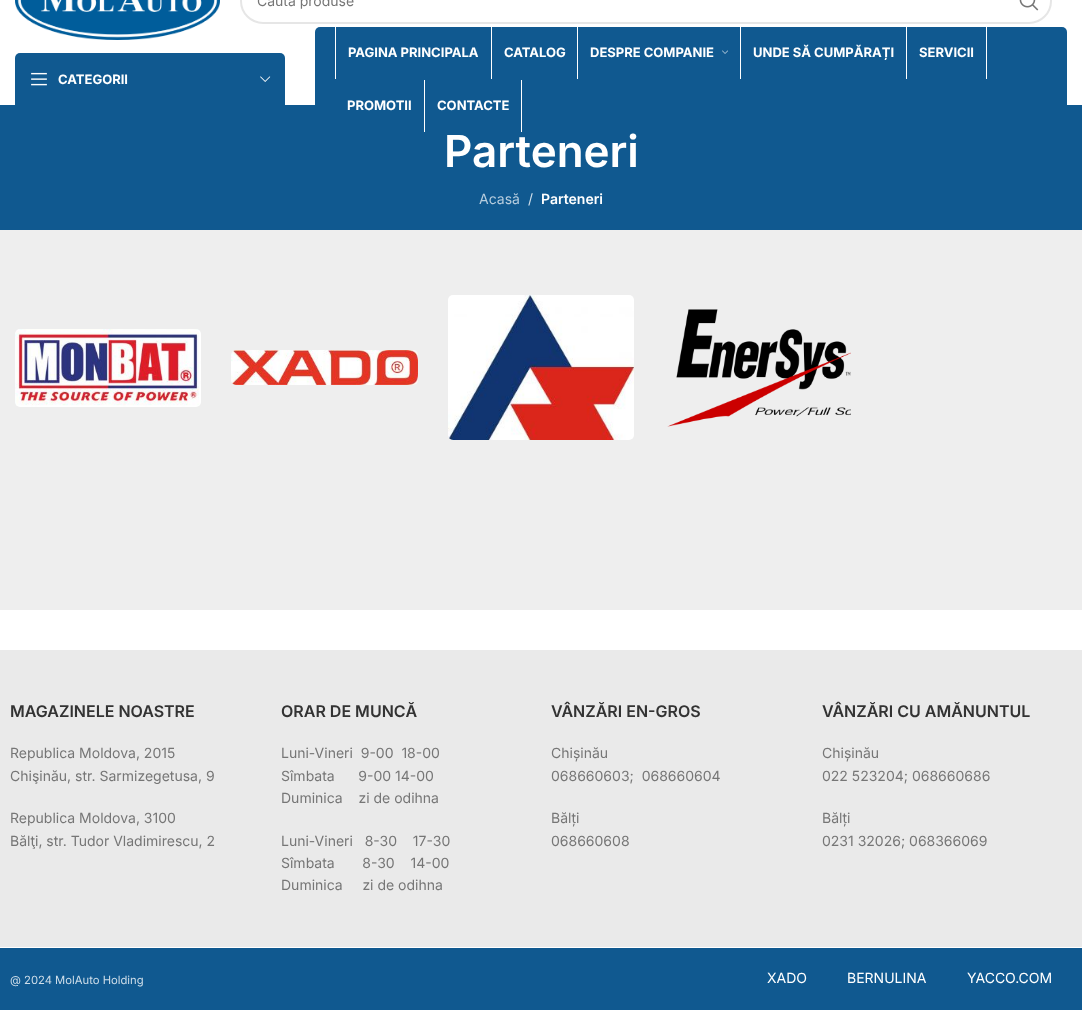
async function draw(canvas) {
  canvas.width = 1082;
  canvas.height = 1010;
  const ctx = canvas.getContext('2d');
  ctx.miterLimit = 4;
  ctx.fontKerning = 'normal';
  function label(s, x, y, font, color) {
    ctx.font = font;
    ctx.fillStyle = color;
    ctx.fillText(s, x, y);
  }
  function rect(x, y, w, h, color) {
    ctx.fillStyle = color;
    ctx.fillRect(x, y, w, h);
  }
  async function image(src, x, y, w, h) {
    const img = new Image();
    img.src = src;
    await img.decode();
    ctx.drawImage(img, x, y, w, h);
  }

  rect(0, 0, 1082, 1010, '#fff');
  await image('assets/img1.png', 15, 0, 205, 40);
  ctx.beginPath();
  ctx.roundRect(241, -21, 810, 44, 22);
  ctx.strokeStyle = '#e6e6e6';
  ctx.lineWidth = 2;
  ctx.stroke();
  label('Caută produse', 257, 6, '14px Inter', '#767676');
  await image('assets/img2.png', 1019, 0, 20, 11);
  ctx.fillStyle = '#105990';
  ctx.beginPath();
  ctx.roundRect(15, 53, 270, 52, [5, 5, 0, 0]);
  ctx.fill();
  await image('assets/img3.png', 31, 72, 16, 14);
  label('CATEGORII', 58, 84, 'bold 13px Inter', '#fff');
  await image('assets/img4.png', 260, 76, 11, 6);
  rect(0, 105, 1082, 125, '#105990');
  ctx.beginPath();
  ctx.roundRect(315, 27, 752, 105, [5, 5, 0, 0]);
  ctx.fill();
  rect(491, 27, 1, 52, '#fff');
  rect(335, 27, 1, 52, '#fff');
  label('PAGINA PRINCIPALA', 348, 57, 'bold 13px Inter', '#fff');
  rect(577, 27, 1, 52, '#fff');
  label('CATALOG', 504, 57, 'bold 13px Inter', '#fff');
  rect(740, 27, 1, 52, '#fff');
  label('DESPRE COMPANIE', 590, 57, 'bold 13px Inter', '#fff');
  await image('assets/img5.png', 722, 50, 6, 4);
  rect(906, 27, 1, 52, '#fff');
  label('UNDE SĂ CUMPĂRAȚI', 753, 57, 'bold 13px Inter', '#fff');
  rect(986, 27, 1, 52, '#fff');
  label('SERVICII', 919, 57, 'bold 13px Inter', '#fff');
  rect(424, 80, 1, 52, '#fff');
  label('PROMOTII', 347, 110, 'bold 13px Inter', '#fff');
  rect(521, 80, 1, 52, '#fff');
  label('CONTACTE', 437, 110, 'bold 13px Inter', '#fff');
  rect(0, 230, 1082, 380, '#eee');
  label('Parteneri', 444, 167, '600 44px Inter', '#fff');
  label('Acasă', 479, 204, '14px Inter', '#b7cdde');
  label('/', 528, 204, '14px Inter', '#cfdee9');
  label('Parteneri', 541, 204, '600 14px Inter', '#fff');
  await image('assets/img6.png', 15, 329, 186, 78);
  await image('assets/img7.png', 231, 350, 187, 35);
  await image('assets/img8.png', 448, 295, 186, 145);
  await image('assets/img9.png', 667, 309, 184, 118);
  rect(0, 650, 1082, 297, '#eaeaea');
  label('MAGAZINELE NOASTRE', 10, 717, '600 16px Inter', '#333');
  label('Republica Moldova, 2015', 10, 758, '14px Inter', '#767676');
  label('Chişinău, str. Sarmizegetusa, 9', 10, 781, '14px Inter', '#767676');
  label('Republica Moldova, 3100', 10, 823, '14px Inter', '#767676');
  label('Bălţi, str. Tudor Vladimirescu, 2', 10, 846, '14px Inter', '#767676');
  label('ORAR DE MUNCĂ', 281, 717, '600 16px Inter', '#333');
  label('Luni-Vineri  9-00  18-00', 281, 758, '14px Inter', '#767676');
  label('Sîmbata      9-00 14-00', 281, 781, '14px Inter', '#767676');
  label('Duminica    zi de odihna', 281, 803, '14px Inter', '#767676');
  label('Luni-Vineri   8-30    17-30', 281, 846, '14px Inter', '#767676');
  label('Sîmbata       8-30    14-00', 281, 868, '14px Inter', '#767676');
  label('Duminica     zi de odihna', 281, 890, '14px Inter', '#767676');
  label('VÂNZĂRI EN-GROS', 551, 717, '600 16px Inter', '#333');
  label('Chișinău', 551, 758, '14px Inter', '#767676');
  label('068660603;  068660604', 551, 781, '14px Inter', '#767676');
  label('Bălți', 551, 823, '14px Inter', '#767676');
  label('068660608', 551, 846, '14px Inter', '#767676');
  label('VÂNZĂRI CU AMĂNUNTUL', 822, 717, '600 16px Inter', '#333');
  label('Chișinău', 822, 758, '14px Inter', '#767676');
  label('022 523204; 068660686', 822, 781, '14px Inter', '#767676');
  label('Bălți', 822, 823, '14px Inter', '#767676');
  label('0231 32026; 068366069', 822, 846, '14px Inter', '#767676');
  rect(0, 948, 1082, 62, '#105990');
  label('@ 2024 MolAuto Holding', 10, 984, '11.25px Inter', '#cfdee9');
  label('XADO', 767, 983, '14px Inter', '#fff');
  label('BERNULINA', 847, 983, '14px Inter', '#fff');
  label('YACCO.COM', 967, 983, '14px Inter', '#fff');
}

draw(document.querySelector('canvas'));
